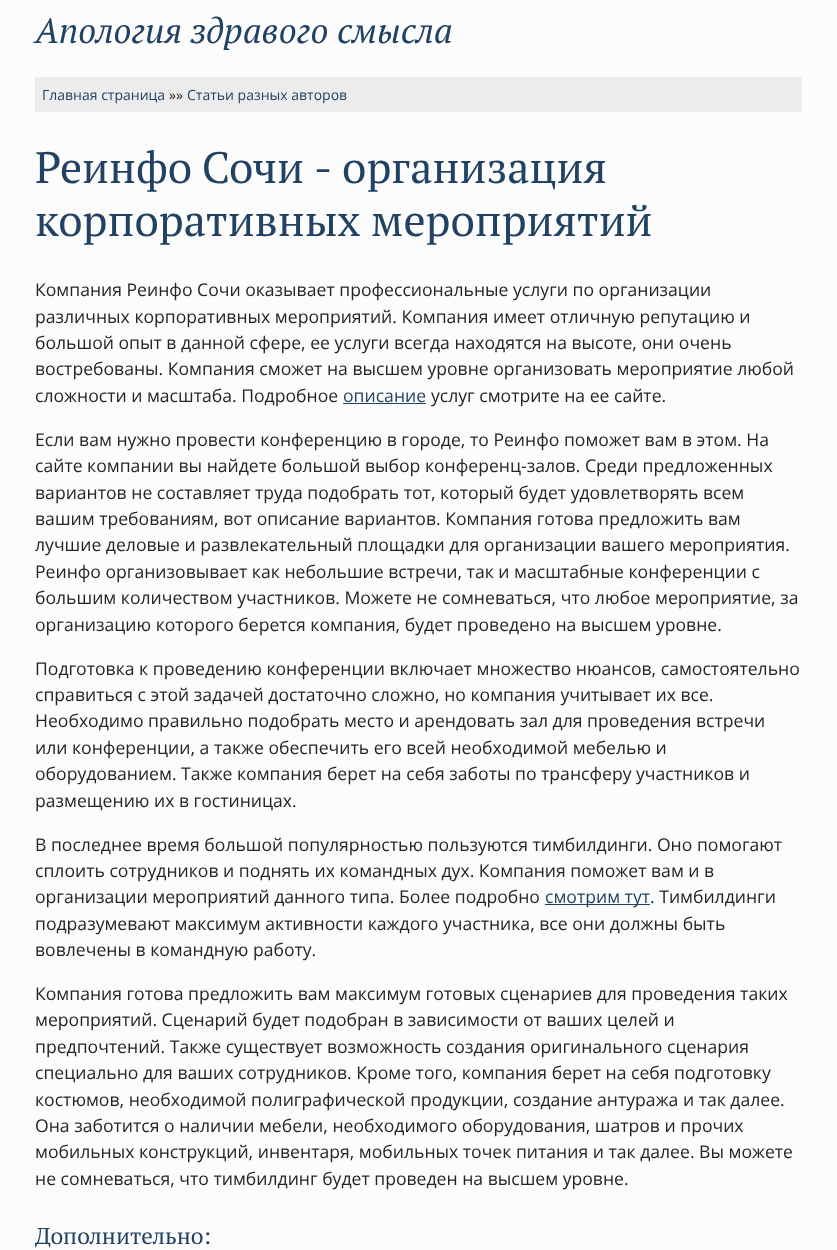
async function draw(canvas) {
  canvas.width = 837;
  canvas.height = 1250;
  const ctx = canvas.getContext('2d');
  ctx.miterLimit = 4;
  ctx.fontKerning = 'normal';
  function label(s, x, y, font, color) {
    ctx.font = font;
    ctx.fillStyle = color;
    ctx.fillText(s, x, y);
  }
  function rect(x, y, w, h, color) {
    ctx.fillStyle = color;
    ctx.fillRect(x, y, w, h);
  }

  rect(0, 0, 837, 1250, '#fcfcfc');
  label('Апология здравого смысла', 35, 43, 'italic 35.25px PT Serif', '#214263');
  rect(35, 77, 767, 35, '#ececec');
  label('Главная страница', 42, 100, '14px Open Sans', '#214263');
  label('»»', 169, 100, '14px Open Sans', '#242424');
  label('Статьи разных авторов', 187, 100, '14px Open Sans', '#214263');
  ctx.wordSpacing = '-1px';
  label('Реинфо Сочи - организация', 35, 183, '44px PT Serif', '#214263');
  ctx.wordSpacing = '0px';
  label('корпоративных мероприятий', 35, 236, '44px PT Serif', '#214263');
  label('Компания Реинфо Сочи оказывает профессиональные услуги по организации', 35, 296, '17.6px Open Sans', '#242424');
  label('различных корпоративных мероприятий. Компания имеет отличную репутацию и', 35, 323, '17.6px Open Sans', '#242424');
  label('большой опыт в данной сфере, ее услуги всегда находятся на высоте, они очень', 35, 349, '17.6px Open Sans', '#242424');
  label('востребованы. Компания сможет на высшем уровне организовать мероприятие любой', 35, 375, '17.6px Open Sans', '#242424');
  label('сложности и масштаба. Подробное', 35, 402, '17.6px Open Sans', '#242424');
  label('описание', 343, 402, '17.6px Open Sans', '#214263');
  rect(343, 403, 83, 1, '#214263');
  label('услуг смотрите на ее сайте.', 431, 402, '17.6px Open Sans', '#242424');
  label('Если вам нужно провести конференцию в городе, то Реинфо поможет вам в этом. На', 35, 446, '17.6px Open Sans', '#242424');
  label('сайте компании вы найдете большой выбор конференц-залов. Среди предложенных', 35, 472, '17.6px Open Sans', '#242424');
  label('вариантов не составляет труда подобрать тот, который будет удовлетворять всем', 35, 499, '17.6px Open Sans', '#242424');
  label('вашим требованиям, вот описание вариантов. Компания готова предложить вам', 35, 525, '17.6px Open Sans', '#242424');
  label('лучшие деловые и развлекательный площадки для организации вашего мероприятия.', 35, 551, '17.6px Open Sans', '#242424');
  label('Реинфо организовывает как небольшие встречи, так и масштабные конференции с', 35, 578, '17.6px Open Sans', '#242424');
  label('большим количеством участников. Можете не сомневаться, что любое мероприятие, за', 35, 604, '17.6px Open Sans', '#242424');
  label('организацию которого берется компания, будет проведено на высшем уровне.', 35, 631, '17.6px Open Sans', '#242424');
  label('Подготовка к проведению конференции включает множество нюансов, самостоятельно', 35, 675, '17.6px Open Sans', '#242424');
  label('справиться с этой задачей достаточно сложно, но компания учитывает их все.', 35, 701, '17.6px Open Sans', '#242424');
  label('Необходимо правильно подобрать место и арендовать зал для проведения встречи', 35, 727, '17.6px Open Sans', '#242424');
  label('или конференции, а также обеспечить его всей необходимой мебелью и', 35, 754, '17.6px Open Sans', '#242424');
  label('оборудованием. Также компания берет на себя заботы по трансферу участников и', 35, 780, '17.6px Open Sans', '#242424');
  label('размещению их в гостиницах.', 35, 807, '17.6px Open Sans', '#242424');
  label('В последнее время большой популярностью пользуются тимбилдинги. Оно помогают', 35, 851, '17.6px Open Sans', '#242424');
  label('сплоить сотрудников и поднять их командных дух. Компания поможет вам и в', 35, 877, '17.6px Open Sans', '#242424');
  label('организации мероприятий данного типа. Более подробно', 35, 903, '17.6px Open Sans', '#242424');
  rect(545, 904, 105, 1, '#214263');
  label('смотрим тут', 545, 903, '17.6px Open Sans', '#214263');
  label('. Тимбилдинги', 650, 903, '17.6px Open Sans', '#242424');
  label('подразумевают максимум активности каждого участника, все они должны быть', 35, 930, '17.6px Open Sans', '#242424');
  label('вовлечены в командную работу.', 35, 956, '17.6px Open Sans', '#242424');
  label('Компания готова предложить вам максимум готовых сценариев для проведения таких', 35, 1000, '17.6px Open Sans', '#242424');
  label('мероприятий. Сценарий будет подобран в зависимости от ваших целей и', 35, 1026, '17.6px Open Sans', '#242424');
  label('предпочтений. Также существует возможность создания оригинального сценария', 35, 1053, '17.6px Open Sans', '#242424');
  label('специально для ваших сотрудников. Кроме того, компания берет на себя подготовку', 35, 1079, '17.6px Open Sans', '#242424');
  label('костюмов, необходимой полиграфической продукции, создание антуража и так далее.', 35, 1106, '17.6px Open Sans', '#242424');
  label('Она заботится о наличии мебели, необходимого оборудования, шатров и прочих', 35, 1132, '17.6px Open Sans', '#242424');
  label('мобильных конструкций, инвентаря, мобильных точек питания и так далее. Вы можете', 35, 1158, '17.6px Open Sans', '#242424');
  label('не сомневаться, что тимбилдинг будет проведен на высшем уровне.', 35, 1185, '17.6px Open Sans', '#242424');
  label('Дополнительно:', 35, 1244, '23px PT Serif', '#214263');
}

draw(document.querySelector('canvas'));
